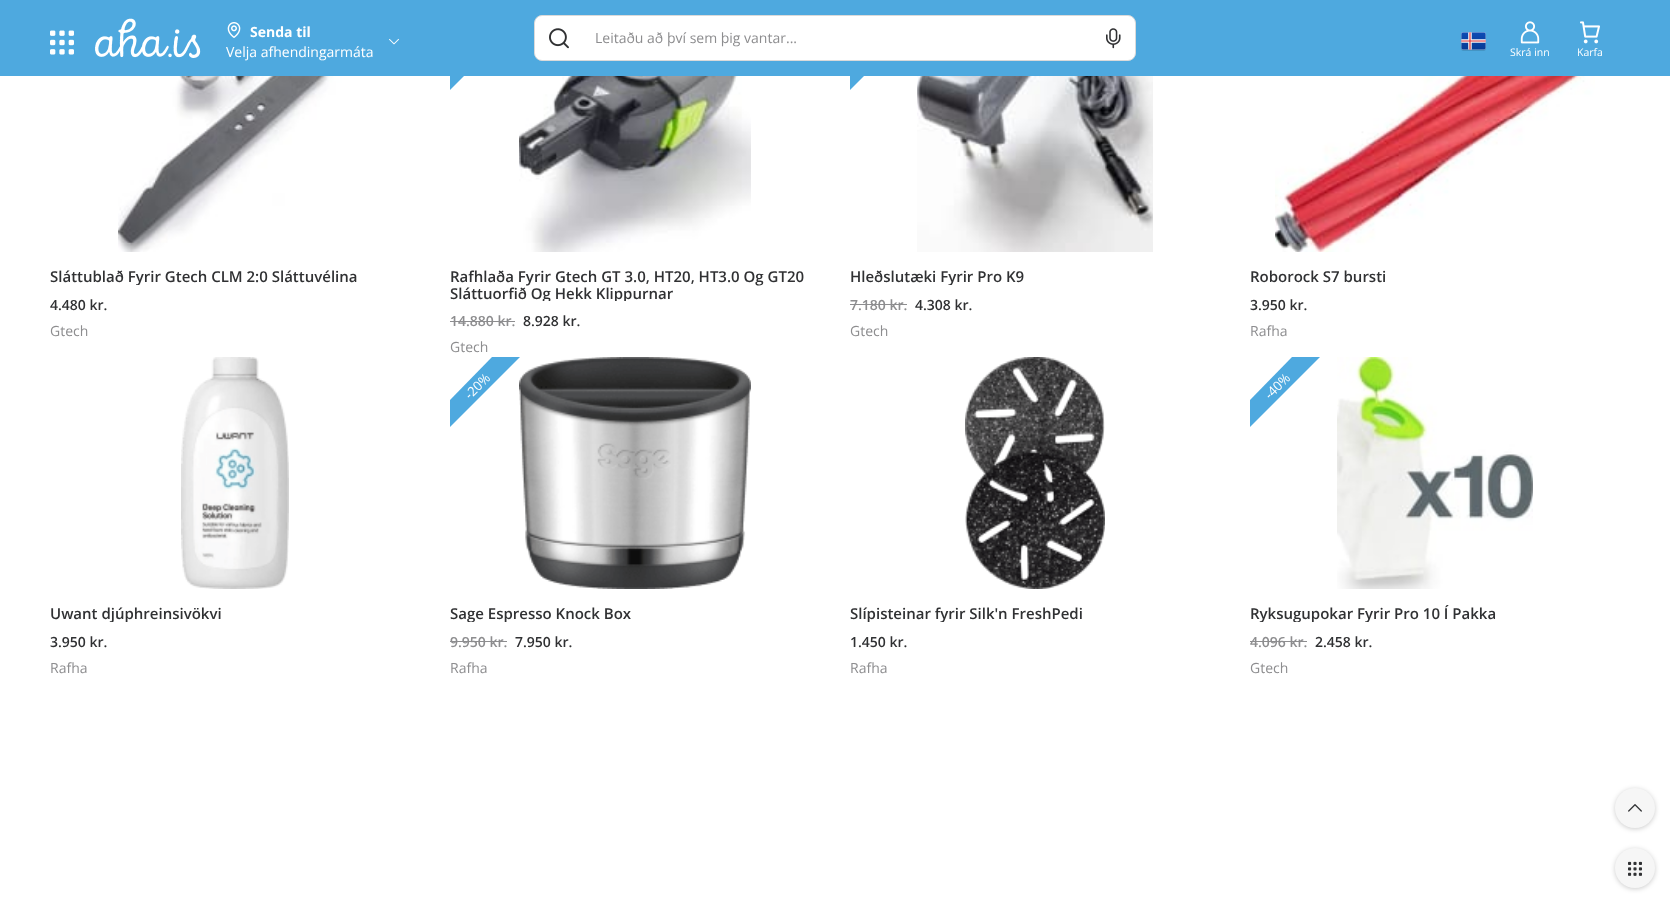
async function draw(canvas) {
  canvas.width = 1670;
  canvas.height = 898;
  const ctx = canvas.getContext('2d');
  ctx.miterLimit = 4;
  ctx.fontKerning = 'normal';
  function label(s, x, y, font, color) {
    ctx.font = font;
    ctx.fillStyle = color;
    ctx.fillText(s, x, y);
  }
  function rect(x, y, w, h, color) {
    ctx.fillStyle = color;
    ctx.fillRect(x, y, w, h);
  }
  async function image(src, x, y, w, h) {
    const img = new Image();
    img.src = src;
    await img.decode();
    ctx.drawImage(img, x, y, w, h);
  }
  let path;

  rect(0, 0, 1670, 898, '#fff');
  await image('assets/img11.png', 519, 76, 232, 176);
  ctx.fillStyle = '#4ea9df';
  path = new Path2D('M520 20L450 90V63L492 20Z');
  ctx.fill(path);
  await image('assets/img12.png', 917, 76, 236, 176);
  path = new Path2D('M920 20L850 90V63L892 20Z');
  ctx.fill(path);
  rect(0, 0, 1670, 76, '#4ea9df');
  await image('assets/img1.png', 50, 30, 24, 25);
  await image('assets/img2.png', 95, 18, 106, 40);
  await image('assets/img3.png', 227, 22, 14, 16);
  label('Senda til', 250, 37, 'bold 14px Open Sans', '#fff');
  label('Velja afhendingarmáta', 226, 57, '14px Open Sans', '#fff');
  await image('assets/img4.png', 389, 38, 10, 7);
  ctx.beginPath();
  ctx.roundRect(534.5, 15.5, 601, 45, 7.5);
  ctx.fill();
  ctx.strokeStyle = '#dadada';
  ctx.stroke();
  await image('assets/img5.png', 549, 28, 20, 21);
  label('Leitaðu að því sem þig vantar...', 595, 43, '14px Open Sans', '#8d8d8f');
  await image('assets/img6.png', 1106, 28, 15, 21);
  await image('assets/img7.png', 1461, 32, 25, 19);
  await image('assets/img8.png', 1520, 21, 20, 23);
  label('Skrá inn', 1510, 56, '10.5px Open Sans', '#fff');
  await image('assets/img9.png', 1580, 21, 20, 23);
  label('Karfa', 1577, 56, '10.5px Open Sans', '#fff');
  await image('assets/img10.png', 118, 76, 234, 176);
  ctx.save();
  ctx.beginPath();
  ctx.rect(50, 268, 370, 17);
  ctx.clip();
  label('Sláttublað Fyrir Gtech CLM 2:0 Sláttuvélina', 50, 282, '600 15px Open Sans', '#303133');
  ctx.restore();
  label('4.480 kr.', 50, 310, '600 14px Open Sans', '#303133');
  label('Gtech', 50, 336, '14px Open Sans', '#8d8d8f');
  label('Rafhlaða Fyrir Gtech GT 3.0, HT20, HT3.0 Og GT20', 450, 282, '600 15px Open Sans', '#303133');
  ctx.save();
  ctx.beginPath();
  ctx.rect(450, 268, 370, 33);
  ctx.clip();
  label('Sláttuorfið Og Hekk Klippurnar', 450, 299, '600 15px Open Sans', '#303133');
  ctx.restore();
  label('14.880 kr.', 450, 326, '600 14px Open Sans', '#8d8d8f');
  rect(450, 321, 65, 1, '#8d8d8f');
  label('8.928 kr.', 523, 326, '600 14px Open Sans', '#303133');
  label('Gtech', 450, 352, '14px Open Sans', '#8d8d8f');
  ctx.save();
  ctx.beginPath();
  ctx.rect(850, 268, 370, 17);
  ctx.clip();
  label('Hleðslutæki Fyrir Pro K9', 850, 282, '600 15px Open Sans', '#303133');
  ctx.restore();
  label('7.180 kr.', 850, 310, '600 14px Open Sans', '#8d8d8f');
  rect(850, 304, 57, 1, '#8d8d8f');
  label('4.308 kr.', 915, 310, '600 14px Open Sans', '#303133');
  label('Gtech', 850, 336, '14px Open Sans', '#8d8d8f');
  await image('assets/img13.png', 1275, 76, 320, 176);
  label('Roborock S7 bursti', 1250, 282, '600 15px Open Sans', '#303133');
  label('3.950 kr.', 1250, 310, '600 14px Open Sans', '#303133');
  label('Rafha', 1250, 336, '14px Open Sans', '#8d8d8f');
  await image('assets/img14.png', 181, 357, 108, 232);
  ctx.save();
  ctx.beginPath();
  ctx.rect(50, 605, 370, 17);
  ctx.clip();
  label('Uwant djúphreinsivökvi', 50, 619, '600 15px Open Sans', '#303133');
  ctx.restore();
  label('3.950 kr.', 50, 647, '600 14px Open Sans', '#303133');
  label('Rafha', 50, 673, '14px Open Sans', '#8d8d8f');
  await image('assets/img15.png', 519, 357, 232, 232);
  ctx.fillStyle = '#4ea9df';
  path = new Path2D('M520 357L450 427V400L492 357Z');
  ctx.fill(path);
  ctx.font = '13px Open Sans';
  ctx.fillStyle = '#fff';
  ctx.save();
  ctx.translate(470, 400);
  ctx.rotate(-45 * Math.PI / 180);
  ctx.fillText('-20%', 0, 0);
  ctx.restore();
  ctx.save();
  ctx.beginPath();
  ctx.rect(450, 605, 370, 17);
  ctx.clip();
  label('Sage Espresso Knock Box', 450, 619, '600 15px Open Sans', '#303133');
  ctx.restore();
  label('9.950 kr.', 450, 647, '600 14px Open Sans', '#8d8d8f');
  rect(450, 641, 57, 1, '#8d8d8f');
  label('7.950 kr.', 515, 647, '600 14px Open Sans', '#303133');
  label('Rafha', 450, 673, '14px Open Sans', '#8d8d8f');
  await image('assets/img16.png', 965, 357, 140, 232);
  ctx.save();
  ctx.beginPath();
  ctx.rect(850, 605, 370, 17);
  ctx.clip();
  label('Slípisteinar fyrir Silk\'n FreshPedi', 850, 619, '600 15px Open Sans', '#303133');
  ctx.restore();
  label('1.450 kr.', 850, 647, '600 14px Open Sans', '#303133');
  label('Rafha', 850, 673, '14px Open Sans', '#8d8d8f');
  ctx.fillStyle = '#4ea9df';
  path = new Path2D('M1320 357L1250 427V400L1292 357Z');
  ctx.fill(path);
  ctx.font = '13px Open Sans';
  ctx.fillStyle = '#fff';
  ctx.save();
  ctx.translate(1270, 400);
  ctx.rotate(-45 * Math.PI / 180);
  ctx.fillText('-40%', 0, 0);
  ctx.restore();
  await image('assets/img17.png', 1337, 357, 196, 232);
  ctx.save();
  ctx.beginPath();
  ctx.rect(1250, 605, 370, 17);
  ctx.clip();
  label('Ryksugupokar Fyrir Pro 10 Í Pakka', 1250, 619, '600 15px Open Sans', '#303133');
  ctx.restore();
  label('4.096 kr.', 1250, 647, '600 14px Open Sans', '#8d8d8f');
  rect(1250, 641, 57, 1, '#8d8d8f');
  label('2.458 kr.', 1315, 647, '600 14px Open Sans', '#303133');
  label('Gtech', 1250, 673, '14px Open Sans', '#8d8d8f');
  ctx.fillStyle = '#00000033';
  ctx.filter = 'blur(2.5px)';
  ctx.beginPath();
  ctx.roundRect(1615, 789, 40, 40, 20);
  ctx.fill();
  ctx.filter = 'none';
  ctx.fillStyle = '#f6f6f6';
  ctx.beginPath();
  ctx.arc(1635, 808, 20, 0, 2 * Math.PI);
  ctx.fill();
  await image('assets/img18.png', 1628, 804, 14, 8);
  ctx.fillStyle = '#00000033';
  ctx.filter = 'blur(2.5px)';
  ctx.beginPath();
  ctx.roundRect(1615, 849, 40, 40, 20);
  ctx.fill();
  ctx.filter = 'none';
  ctx.fillStyle = '#f6f6f6';
  ctx.beginPath();
  ctx.arc(1635, 868, 20, 0, 2 * Math.PI);
  ctx.fill();
  await image('assets/img19.png', 1628, 861, 14, 15);
}

draw(document.querySelector('canvas'));
